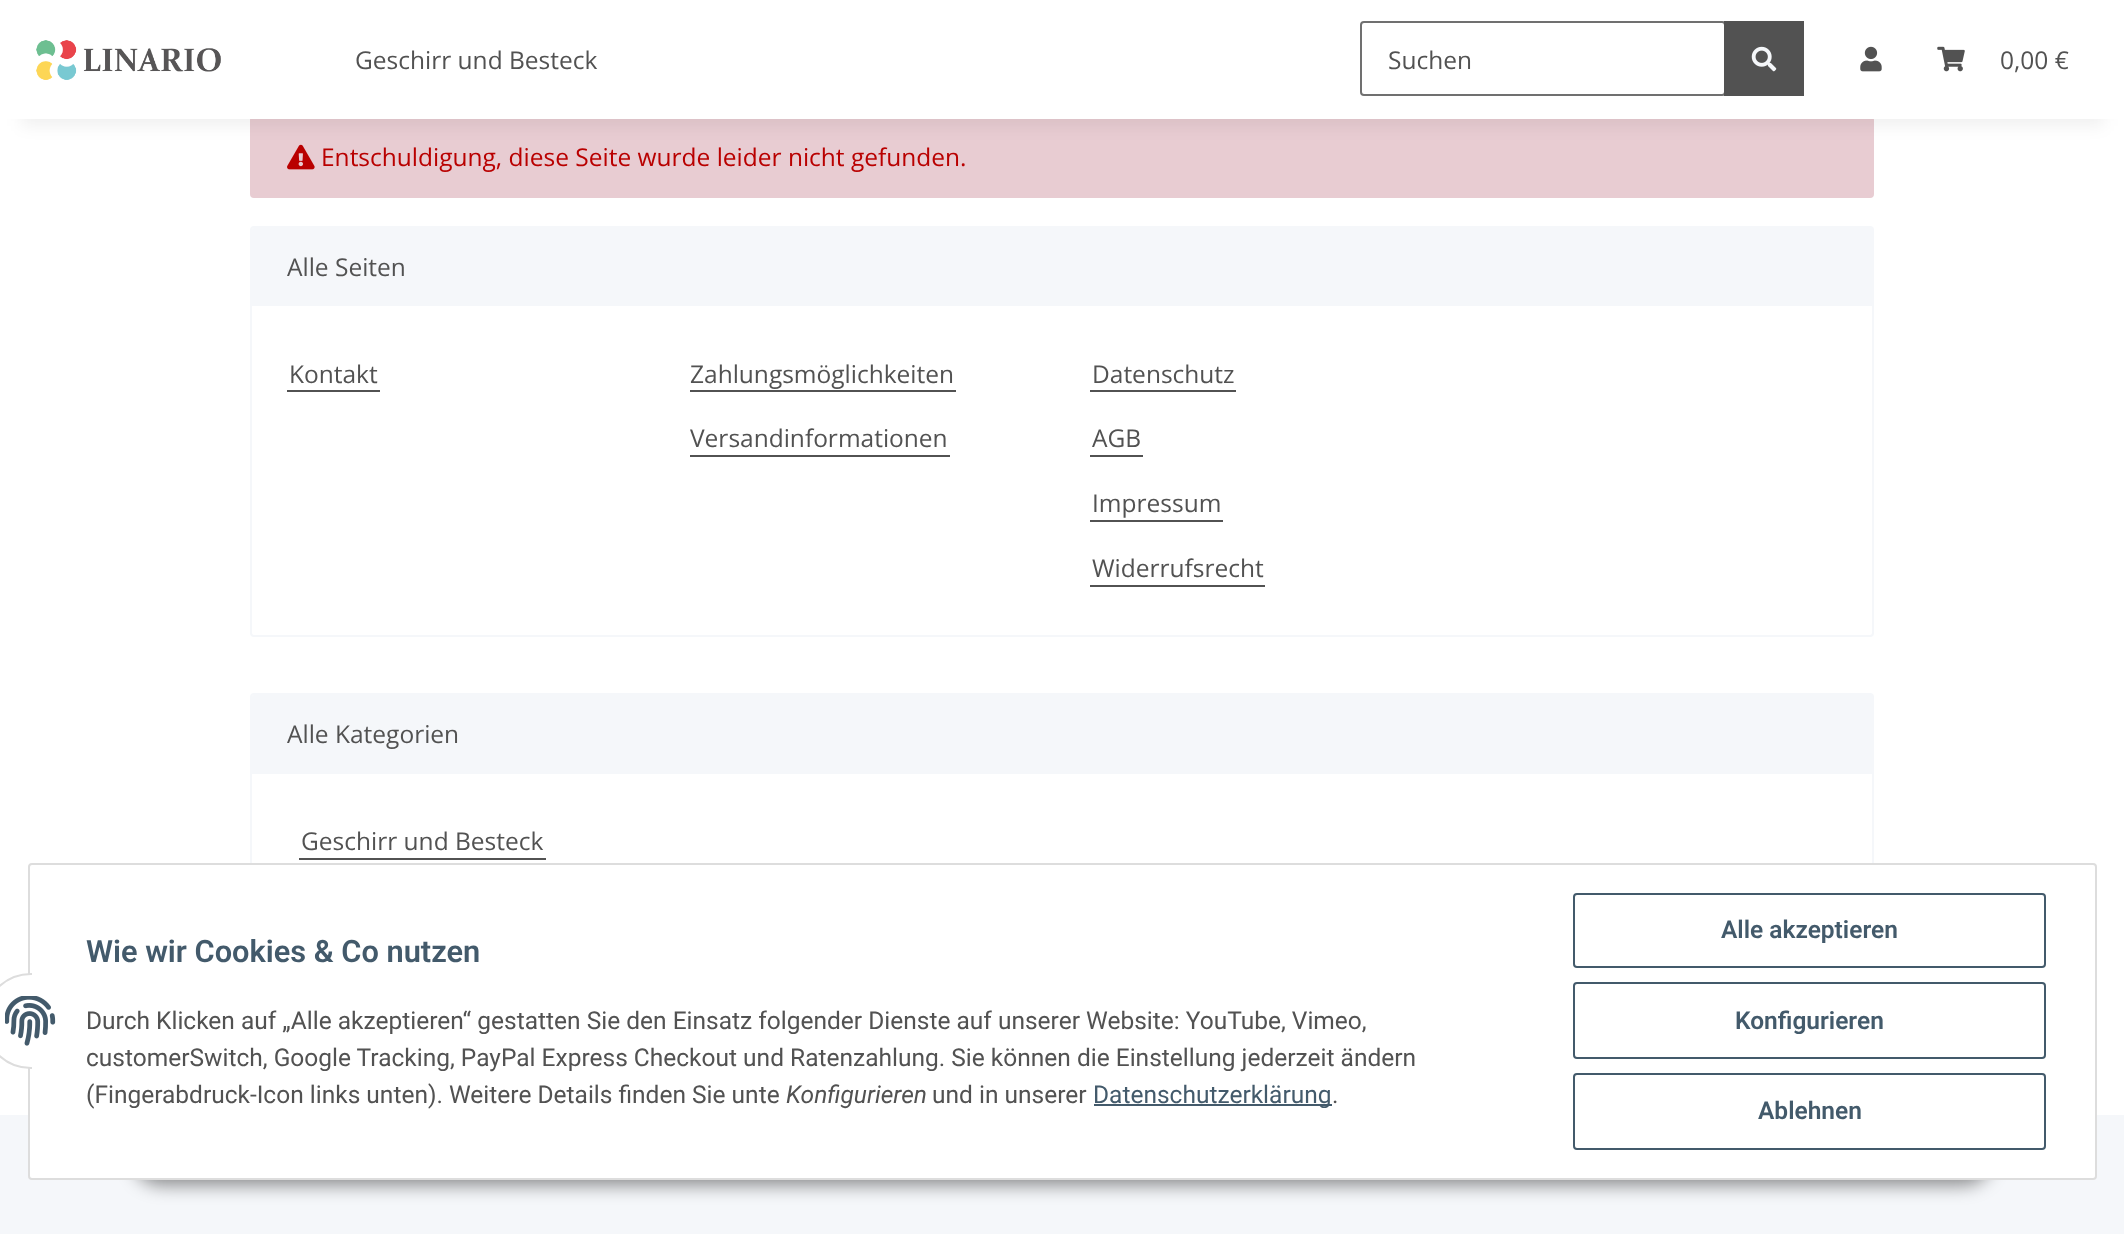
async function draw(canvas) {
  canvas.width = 2124;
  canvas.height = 1234;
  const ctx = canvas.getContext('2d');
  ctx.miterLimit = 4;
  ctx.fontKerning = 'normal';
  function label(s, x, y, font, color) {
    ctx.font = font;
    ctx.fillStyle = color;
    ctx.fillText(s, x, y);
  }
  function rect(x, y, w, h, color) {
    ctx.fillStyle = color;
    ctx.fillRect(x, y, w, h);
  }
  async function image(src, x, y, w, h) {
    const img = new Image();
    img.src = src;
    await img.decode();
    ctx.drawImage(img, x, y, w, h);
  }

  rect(0, 0, 2124, 1234, '#f5f7fa');
  rect(0, 119, 2124, 996, '#fff');
  ctx.fillStyle = '#e8ccd2';
  ctx.beginPath();
  ctx.roundRect(251, 117, 1622, 80, 3);
  ctx.fill();
  ctx.strokeStyle = '#e8ccd2';
  ctx.lineWidth = 2;
  ctx.stroke();
  await image('assets/img5.png', 287, 144, 28, 26);
  ctx.fillStyle = '#0000000f';
  ctx.filter = 'blur(8px)';
  ctx.beginPath();
  ctx.rect(21, 49, 2083, 77);
  ctx.fill();
  ctx.filter = 'none';
  rect(0, 0, 2124, 119, '#fff');
  await image('assets/img1.png', 36, 40, 185, 40);
  label('Geschirr und Besteck', 355, 69, '24.5px Open Sans', '#525252');
  ctx.beginPath();
  ctx.roundRect(1361, 22, 364, 73, 3);
  ctx.strokeStyle = '#707070';
  ctx.stroke();
  label('Suchen', 1388, 69, '24.5px Open Sans', '#525252');
  rect(1724, 21, 80, 75, '#525252');
  await image('assets/img2.png', 1751, 46, 26, 26);
  await image('assets/img3.png', 1860, 46, 22, 26);
  await image('assets/img4.png', 1937, 46, 28, 26);
  label('0,00 €', 2000, 69, '24.5px Open Sans', '#525252');
  label('Entschuldigung, diese Seite wurde leider nicht gefunden.', 321, 166, '24.5px Open Sans', '#b90000');
  ctx.beginPath();
  ctx.roundRect(251, 227, 1622, 409, 3);
  ctx.strokeStyle = '#f5f7fa';
  ctx.stroke();
  ctx.fillStyle = '#f5f7fa';
  ctx.beginPath();
  ctx.roundRect(252, 228, 1621, 78, [2, 2, 0, 0]);
  ctx.fill();
  label('Alle Seiten', 287, 276, '24.5px Open Sans', '#525252');
  label('Kontakt', 289, 383, '24.5px Open Sans', '#525252');
  rect(287, 390, 93, 2, '#525252');
  label('Zahlungsmöglichkeiten', 690, 383, '24.5px Open Sans', '#525252');
  rect(690, 390, 266, 2, '#525252');
  label('Versandinformationen', 690, 447, '24.5px Open Sans', '#525252');
  rect(690, 455, 260, 2, '#525252');
  label('Datenschutz', 1092, 383, '24.5px Open Sans', '#525252');
  rect(1090, 390, 146, 2, '#525252');
  label('AGB', 1092, 447, '24.5px Open Sans', '#525252');
  rect(1090, 455, 53, 2, '#525252');
  label('Impressum', 1092, 512, '24.5px Open Sans', '#525252');
  rect(1090, 520, 133, 2, '#525252');
  label('Widerrufsrecht', 1092, 577, '24.5px Open Sans', '#525252');
  rect(1090, 585, 175, 2, '#525252');
  ctx.beginPath();
  ctx.roundRect(251, 694, 1622, 280, 3);
  ctx.stroke();
  ctx.fillStyle = '#f5f7fa';
  ctx.beginPath();
  ctx.roundRect(252, 695, 1621, 79, [2, 2, 0, 0]);
  ctx.fill();
  label('Alle Kategorien', 287, 743, '24.5px Open Sans', '#525252');
  label('Geschirr und Besteck', 301, 850, '24.5px Open Sans', '#525252');
  rect(299, 858, 247, 2, '#525252');
  ctx.fillStyle = '#00000073';
  ctx.filter = 'blur(9px)';
  ctx.beginPath();
  ctx.roundRect(133, 1129, 1859, 56, 28);
  ctx.fill();
  ctx.filter = 'none';
  ctx.fillStyle = '#fff';
  ctx.beginPath();
  ctx.roundRect(29, 864, 2067, 315, 3);
  ctx.fill();
  ctx.strokeStyle = '#ddd';
  ctx.stroke();
  ctx.beginPath();
  ctx.arc(31, 1021, 47, 0, 2 * Math.PI);
  ctx.fill();
  ctx.stroke();
  rect(32, 973, 47, 96, '#fff');
  await image('assets/img6.png', 5, 996, 51, 50);
  label('Wie wir Cookies & Co nutzen', 86, 962, '600 30.75px Roboto', '#435a6b');
  label('Durch Klicken auf „Alle akzeptieren“ gestatten Sie den Einsatz folgender Dienste auf unserer Website: YouTube, Vimeo,', 86, 1029, '24.5px Roboto', '#525252');
  label('customerSwitch, Google Tracking, PayPal Express Checkout und Ratenzahlung. Sie können die Einstellung jederzeit ändern', 86, 1066, '24.5px Roboto', '#525252');
  label('(Fingerabdruck-Icon links unten). Weitere Details finden Sie unte', 86, 1103, '24.5px Roboto', '#525252');
  label('Konfigurieren', 786, 1103, 'italic 24.5px Roboto', '#525252');
  label('und in unserer', 932, 1103, '24.5px Roboto', '#525252');
  rect(1094, 1104, 238, 2, '#435a6b');
  label('Datenschutzerklärung', 1093, 1103, '24.5px Roboto', '#435a6b');
  label('.', 1332, 1103, '24.5px Roboto', '#525252');
  ctx.beginPath();
  ctx.roundRect(1574, 894, 471, 73, 3);
  ctx.strokeStyle = '#435a6b';
  ctx.stroke();
  label('Alle akzeptieren', 1721, 938, '600 24.5px Roboto', '#435a6b');
  ctx.beginPath();
  ctx.roundRect(1574, 983, 471, 75, 3);
  ctx.stroke();
  label('Konfigurieren', 1735, 1029, '600 24.5px Roboto', '#435a6b');
  ctx.beginPath();
  ctx.roundRect(1574, 1074, 471, 75, 3);
  ctx.stroke();
  label('Ablehnen', 1758, 1119, '600 24.5px Roboto', '#435a6b');
}

draw(document.querySelector('canvas'));
